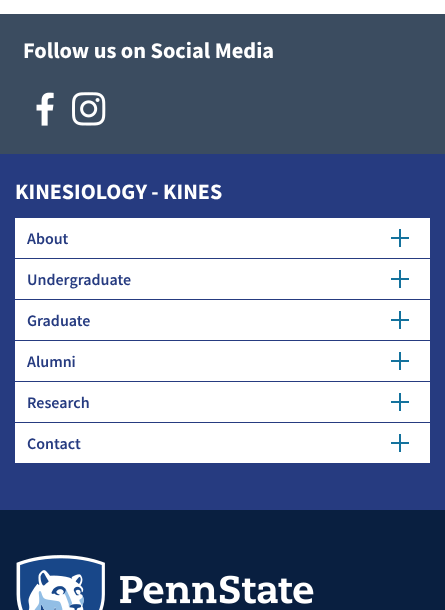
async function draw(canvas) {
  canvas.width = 445;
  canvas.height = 610;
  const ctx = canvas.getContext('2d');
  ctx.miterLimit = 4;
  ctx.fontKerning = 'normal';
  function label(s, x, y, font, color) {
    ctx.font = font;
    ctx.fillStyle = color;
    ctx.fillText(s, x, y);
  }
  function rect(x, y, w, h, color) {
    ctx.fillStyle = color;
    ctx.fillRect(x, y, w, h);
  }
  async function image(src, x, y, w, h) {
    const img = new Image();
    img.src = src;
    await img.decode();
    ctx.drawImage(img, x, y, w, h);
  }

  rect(0, 0, 445, 610, '#fff');
  rect(0, 14, 445, 140, '#3b4c60');
  label('Follow us on Social Media', 23, 58, 'bold 22.4px Source Sans Pro', '#fff');
  await image('assets/img1.png', 36, 92, 18, 34);
  await image('assets/img2.png', 72, 92, 34, 34);
  rect(0, 154, 445, 356, '#263b80');
  label('KINESIOLOGY - KINES', 15, 199, 'bold 22px Source Sans Pro', '#fff');
  rect(15, 218, 415, 40, '#fff');
  label('About', 27, 244, '600 16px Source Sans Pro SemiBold', '#263b80');
  rect(399, 229, 2, 18, '#14729d');
  rect(391, 237, 18, 2, '#14729d');
  rect(15, 259, 415, 40, '#fff');
  label('Undergraduate', 27, 285, '600 16px Source Sans Pro SemiBold', '#263b80');
  rect(399, 270, 2, 18, '#14729d');
  rect(391, 278, 18, 2, '#14729d');
  rect(15, 300, 415, 40, '#fff');
  label('Graduate', 27, 326, '600 16px Source Sans Pro SemiBold', '#263b80');
  rect(399, 311, 2, 18, '#14729d');
  rect(391, 319, 18, 2, '#14729d');
  rect(15, 341, 415, 40, '#fff');
  label('Alumni', 27, 367, '600 16px Source Sans Pro SemiBold', '#263b80');
  rect(399, 352, 2, 18, '#14729d');
  rect(391, 360, 18, 2, '#14729d');
  rect(15, 382, 415, 40, '#fff');
  label('Research', 27, 408, '600 16px Source Sans Pro SemiBold', '#263b80');
  rect(399, 393, 2, 18, '#14729d');
  rect(391, 401, 18, 2, '#14729d');
  rect(15, 423, 415, 40, '#fff');
  label('Contact', 27, 449, '600 16px Source Sans Pro SemiBold', '#263b80');
  rect(399, 434, 2, 18, '#14729d');
  rect(391, 442, 18, 2, '#14729d');
  rect(0, 510, 445, 100, '#091f40');
  await image('assets/img3.png', 16, 555, 298, 55);
}

draw(document.querySelector('canvas'));
